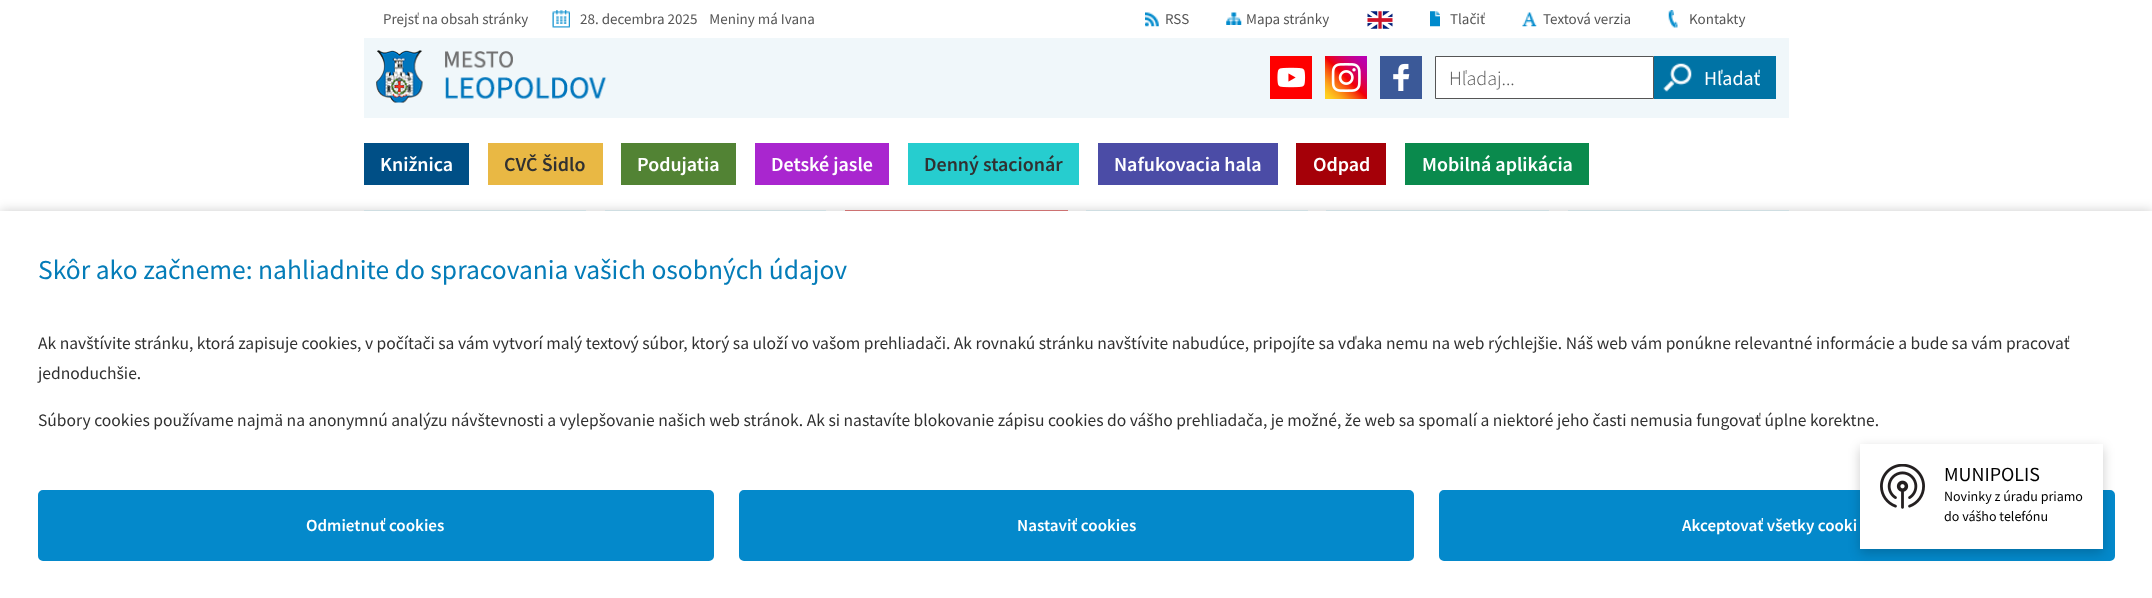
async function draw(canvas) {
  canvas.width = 2152;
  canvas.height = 598;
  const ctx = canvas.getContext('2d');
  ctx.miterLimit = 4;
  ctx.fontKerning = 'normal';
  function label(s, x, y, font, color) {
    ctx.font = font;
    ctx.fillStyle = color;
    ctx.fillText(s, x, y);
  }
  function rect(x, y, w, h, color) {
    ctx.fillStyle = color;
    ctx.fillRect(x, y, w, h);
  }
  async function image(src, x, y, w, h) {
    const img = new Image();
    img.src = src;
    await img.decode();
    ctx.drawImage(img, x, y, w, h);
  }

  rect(0, 0, 2152, 598, '#fff');
  label('Prejsť na obsah stránky', 383, 24, '15px Source Sans Pro', '#555');
  await image('assets/img1.png', 552, 10, 18, 18);
  label('28. decembra 2025    Meniny má Ivana', 580, 24, '15px Source Sans Pro', '#555');
  await image('assets/img2.png', 1145, 12, 14, 15);
  label('RSS', 1165, 24, '15px Source Sans Pro', '#555');
  await image('assets/img3.png', 1226, 12, 16, 13);
  label('Mapa stránky', 1246, 24, '15px Source Sans Pro', '#555');
  await image('assets/img4.png', 1367, 11, 26, 18);
  await image('assets/img5.png', 1430, 11, 10, 16);
  label('Tlačiť', 1450, 24, '15px Source Sans Pro', '#555');
  await image('assets/img6.png', 1522, 12, 15, 15);
  label('Textová verzia', 1543, 24, '15px Source Sans Pro', '#555');
  await image('assets/img7.png', 1668, 10, 10, 18);
  label('Kontakty', 1689, 24, '15px Source Sans Pro', '#555');
  rect(364, 38, 1425, 80, '#f0f7fa');
  await image('assets/img8.png', 376, 50, 231, 53);
  await image('assets/img9.png', 1270, 56, 42, 43);
  await image('assets/img10.png', 1325, 56, 42, 43);
  await image('assets/img11.png', 1380, 56, 42, 43);
  ctx.fillStyle = '#fff';
  ctx.beginPath();
  ctx.rect(1435.5, 56.5, 218, 42);
  ctx.fill();
  ctx.strokeStyle = '#555';
  ctx.stroke();
  label('Hľadaj...', 1449, 85, '300 20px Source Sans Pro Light', '#555');
  rect(1654, 56, 122, 43, '#0073a5');
  await image('assets/img12.png', 1663, 63, 29, 29);
  label('Hľadať', 1704, 85, '20px Source Sans Pro', '#fff');
  rect(364, 143, 105, 42, '#004f86');
  label('Knižnica', 380, 171, '600 20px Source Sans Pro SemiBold', '#fff');
  rect(488, 143, 115, 42, '#e9b844');
  label('CVČ Šidlo', 504, 171, '600 20px Source Sans Pro SemiBold', '#313131');
  rect(621, 143, 115, 42, '#528334');
  label('Podujatia', 637, 171, '600 20px Source Sans Pro SemiBold', '#fff');
  rect(755, 143, 134, 42, '#a926cf');
  label('Detské jasle', 771, 171, '600 20px Source Sans Pro SemiBold', '#fff');
  rect(908, 143, 171, 42, '#26cdcf');
  label('Denný stacionár', 924, 171, '600 20px Source Sans Pro SemiBold', '#313131');
  rect(1098, 143, 180, 42, '#4b4ca6');
  label('Nafukovacia hala', 1114, 171, '600 20px Source Sans Pro SemiBold', '#fff');
  rect(1296, 143, 90, 42, '#a50008');
  label('Odpad', 1313, 171, '600 20px Source Sans Pro SemiBold', '#fff');
  rect(1405, 143, 184, 42, '#0a8a4d');
  label('Mobilná aplikácia', 1422, 171, '600 20px Source Sans Pro SemiBold', '#fff');
  rect(364, 210, 222, 1, '#e5f5fa');
  rect(605, 210, 221, 1, '#e5f5fa');
  rect(845, 210, 223, 1, '#e37e7e');
  rect(1086, 210, 222, 1, '#e5f5fa');
  rect(1326, 210, 223, 1, '#e5f5fa');
  rect(1568, 210, 221, 1, '#e5f5fa');
  ctx.fillStyle = '#00000033';
  ctx.filter = 'blur(6px)';
  ctx.beginPath();
  ctx.rect(0, 211, 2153, 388);
  ctx.fill();
  ctx.filter = 'none';
  rect(0, 211, 2152, 387, '#fff');
  label('Skôr ako začneme: nahliadnite do spracovania vašich osobných údajov', 38, 279, '27.5px Source Sans Pro', '#047cb8');
  label('Ak navštívite stránku, ktorá zapisuje cookies, v počítači sa vám vytvorí malý textový súbor, ktorý sa uloží vo vašom prehliadači. Ak rovnakú stránku navštívite nabudúce, pripojíte sa vďaka nemu na web rýchlejšie. Náš web vám ponúkne relevantné informácie a bude sa vám pracovať', 38, 349, '17.5px Source Sans Pro', '#313131');
  label('jednoduchšie.', 38, 379, '17.5px Source Sans Pro', '#313131');
  label('Súbory cookies používame najmä na anonymnú analýzu návštevnosti a vylepšovanie našich web stránok. Ak si nastavíte blokovanie zápisu cookies do vášho prehliadača, je možné, že web sa spomalí a niektoré jeho časti nemusia fungovať úplne korektne.', 38, 426, '17.5px Source Sans Pro', '#313131');
  ctx.fillStyle = '#0489cb';
  ctx.beginPath();
  ctx.roundRect(40.5, 492.5, 671, 66, 2.5);
  ctx.fill();
  ctx.strokeStyle = '#0489cb';
  ctx.lineWidth = 5;
  ctx.stroke();
  label('Odmietnuť cookies', 306, 531, '600 17px Source Sans Pro SemiBold', '#fff');
  ctx.fillStyle = '#0489cb';
  ctx.beginPath();
  ctx.roundRect(741.5, 492.5, 670, 66, 2.5);
  ctx.fill();
  ctx.stroke();
  label('Nastaviť cookies', 1017, 531, '600 17px Source Sans Pro SemiBold', '#fff');
  ctx.fillStyle = '#0489cb';
  ctx.beginPath();
  ctx.roundRect(1441.5, 492.5, 671, 66, 2.5);
  ctx.fill();
  ctx.stroke();
  label('Akceptovať všetky cooki', 1682, 531, '600 17px Source Sans Pro SemiBold', '#fff');
  ctx.fillStyle = '#00000033';
  ctx.filter = 'blur(6px)';
  ctx.beginPath();
  ctx.rect(1860, 448, 243, 105);
  ctx.fill();
  ctx.filter = 'none';
  rect(1860, 444, 243, 105, '#fff');
  await image('assets/img13.png', 1880, 464, 45, 45);
  label('MUNIPOLIS', 1944, 481, '20px Source Sans Pro', '#000');
  label('Novinky z úradu priamo', 1944, 501, '14px Source Sans Pro', '#000');
  label('do vášho telefónu', 1944, 521, '14px Source Sans Pro', '#000');
}

draw(document.querySelector('canvas'));
